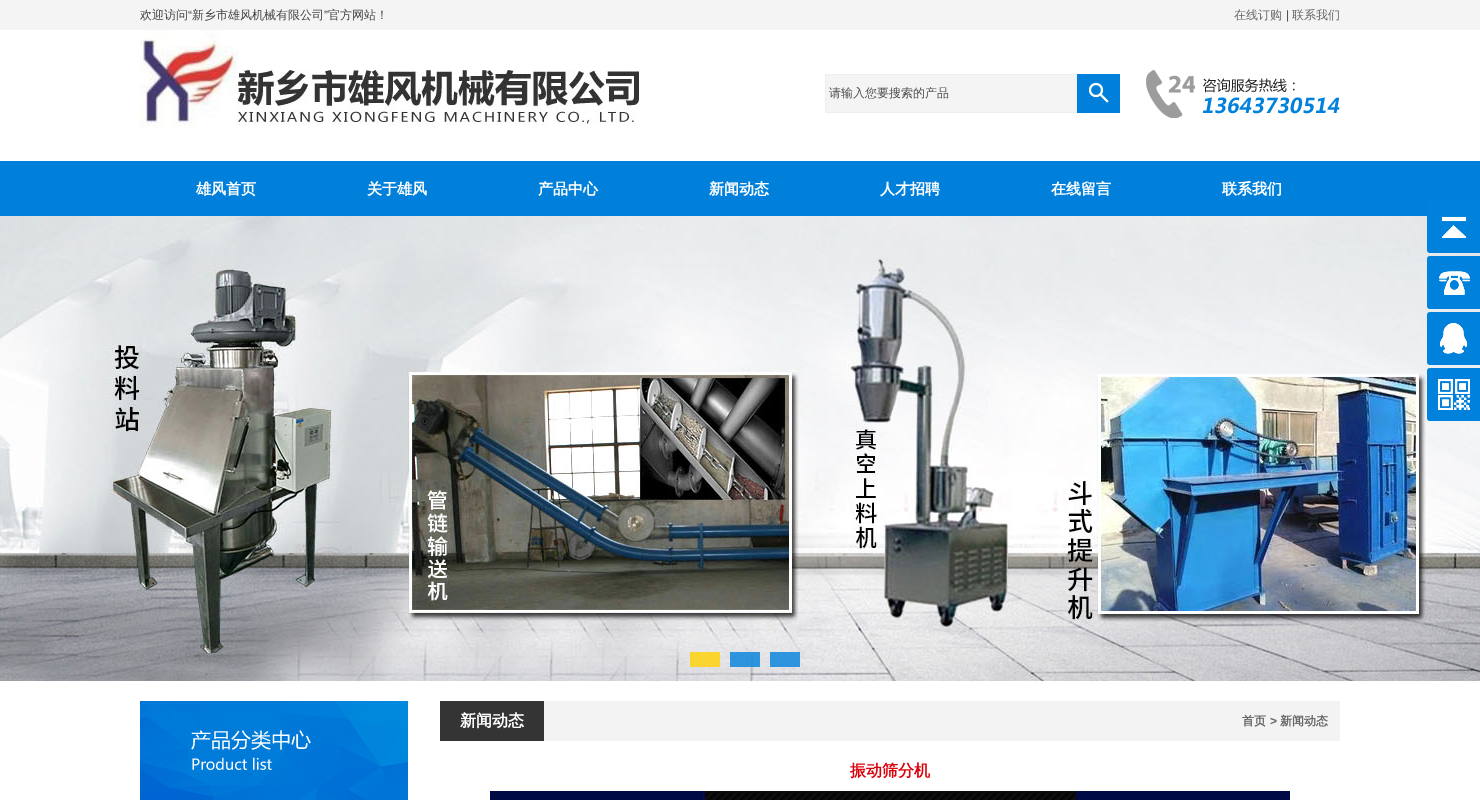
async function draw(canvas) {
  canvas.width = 1480;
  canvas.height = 800;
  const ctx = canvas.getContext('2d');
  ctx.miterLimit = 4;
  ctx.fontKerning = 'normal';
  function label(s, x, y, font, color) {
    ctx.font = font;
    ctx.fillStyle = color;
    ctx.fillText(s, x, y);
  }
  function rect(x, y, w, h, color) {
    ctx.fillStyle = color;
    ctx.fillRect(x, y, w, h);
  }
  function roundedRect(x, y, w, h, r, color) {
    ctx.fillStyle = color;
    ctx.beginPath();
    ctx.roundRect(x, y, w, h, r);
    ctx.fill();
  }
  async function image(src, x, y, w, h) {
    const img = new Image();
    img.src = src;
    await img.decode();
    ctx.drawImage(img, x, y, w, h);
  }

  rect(0, 0, 1480, 800, '#fff');
  rect(0, 0, 1480, 30, '#f4f4f4');
  label('欢迎访问', 140, 19, '500 12px WenQuanYi Zen Hei', '#444');
  label('“', 188, 19, '12px Liberation Sans', '#444');
  label('新乡市雄风机械有限公司', 192, 19, '500 12px WenQuanYi Zen Hei', '#444');
  label('”', 324, 19, '12px Liberation Sans', '#444');
  label('官方网站！', 328, 19, '500 12px WenQuanYi Zen Hei', '#444');
  label('在线订购', 1234, 19, '500 12px WenQuanYi Zen Hei', '#666');
  label('|', 1286, 19, '12px Liberation Sans', '#444');
  label('联系我们', 1292, 19, '500 12px WenQuanYi Zen Hei', '#666');
  await image('assets/img1.png', 1146, 70, 194, 48);
  await image('assets/img2.png', 140, 30, 499, 98);
  ctx.fillStyle = '#f4f4f4';
  ctx.beginPath();
  ctx.rect(825.5, 74.5, 251, 38);
  ctx.fill();
  ctx.strokeStyle = '#eee';
  ctx.stroke();
  label('请输入您要搜索的产品', 829, 97, '500 12px WenQuanYi Zen Hei', '#4e4e4e');
  await image('assets/img3.png', 1077, 74, 43, 39);
  rect(0, 161, 1480, 55, '#0080da');
  label('雄风首页', 196, 194, 'bold 15px WenQuanYi Zen Hei', '#fff');
  label('关于雄风', 367, 194, 'bold 15px WenQuanYi Zen Hei', '#fff');
  label('产品中心', 538, 194, 'bold 15px WenQuanYi Zen Hei', '#fff');
  label('新闻动态', 709, 194, 'bold 15px WenQuanYi Zen Hei', '#fff');
  label('人才招聘', 880, 194, 'bold 15px WenQuanYi Zen Hei', '#fff');
  label('在线留言', 1051, 194, 'bold 15px WenQuanYi Zen Hei', '#fff');
  label('联系我们', 1222, 194, 'bold 15px WenQuanYi Zen Hei', '#fff');
  await image('assets/img4.png', 0, 216, 1480, 465);
  rect(690, 652, 30, 15, '#ffd101cc');
  rect(730, 652, 30, 15, '#0080dacc');
  rect(770, 652, 30, 15, '#0080dacc');
  roundedRect(1427, 200, 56, 53, 3, '#0081db');
  await image('assets/img5.png', 1441, 216, 26, 22);
  roundedRect(1427, 256, 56, 53, 3, '#0081db');
  await image('assets/img6.png', 1439, 271, 31, 24);
  roundedRect(1427, 312, 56, 53, 3, '#0081db');
  await image('assets/img7.png', 1440, 323, 27, 31);
  roundedRect(1427, 368, 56, 53, 3, '#0081db');
  await image('assets/img8.png', 1438, 379, 32, 31);
  await image('assets/img9.png', 140, 701, 268, 99);
  rect(544, 701, 796, 40, '#f3f3f3');
  rect(440, 701, 104, 40, '#343434');
  label('新闻动态', 460, 726, 'bold 16px WenQuanYi Zen Hei', '#fff');
  label('首页', 1242, 725, 'bold 12px WenQuanYi Zen Hei', '#666');
  label('>', 1270, 725, 'bold 12px Liberation Sans', '#666');
  label('新闻动态', 1280, 725, 'bold 12px WenQuanYi Zen Hei', '#666');
  label('振动筛分机', 850, 776, 'bold 16px WenQuanYi Zen Hei', '#da020d');
  await image('assets/img10.png', 490, 791, 800, 9);
}

draw(document.querySelector('canvas'));
